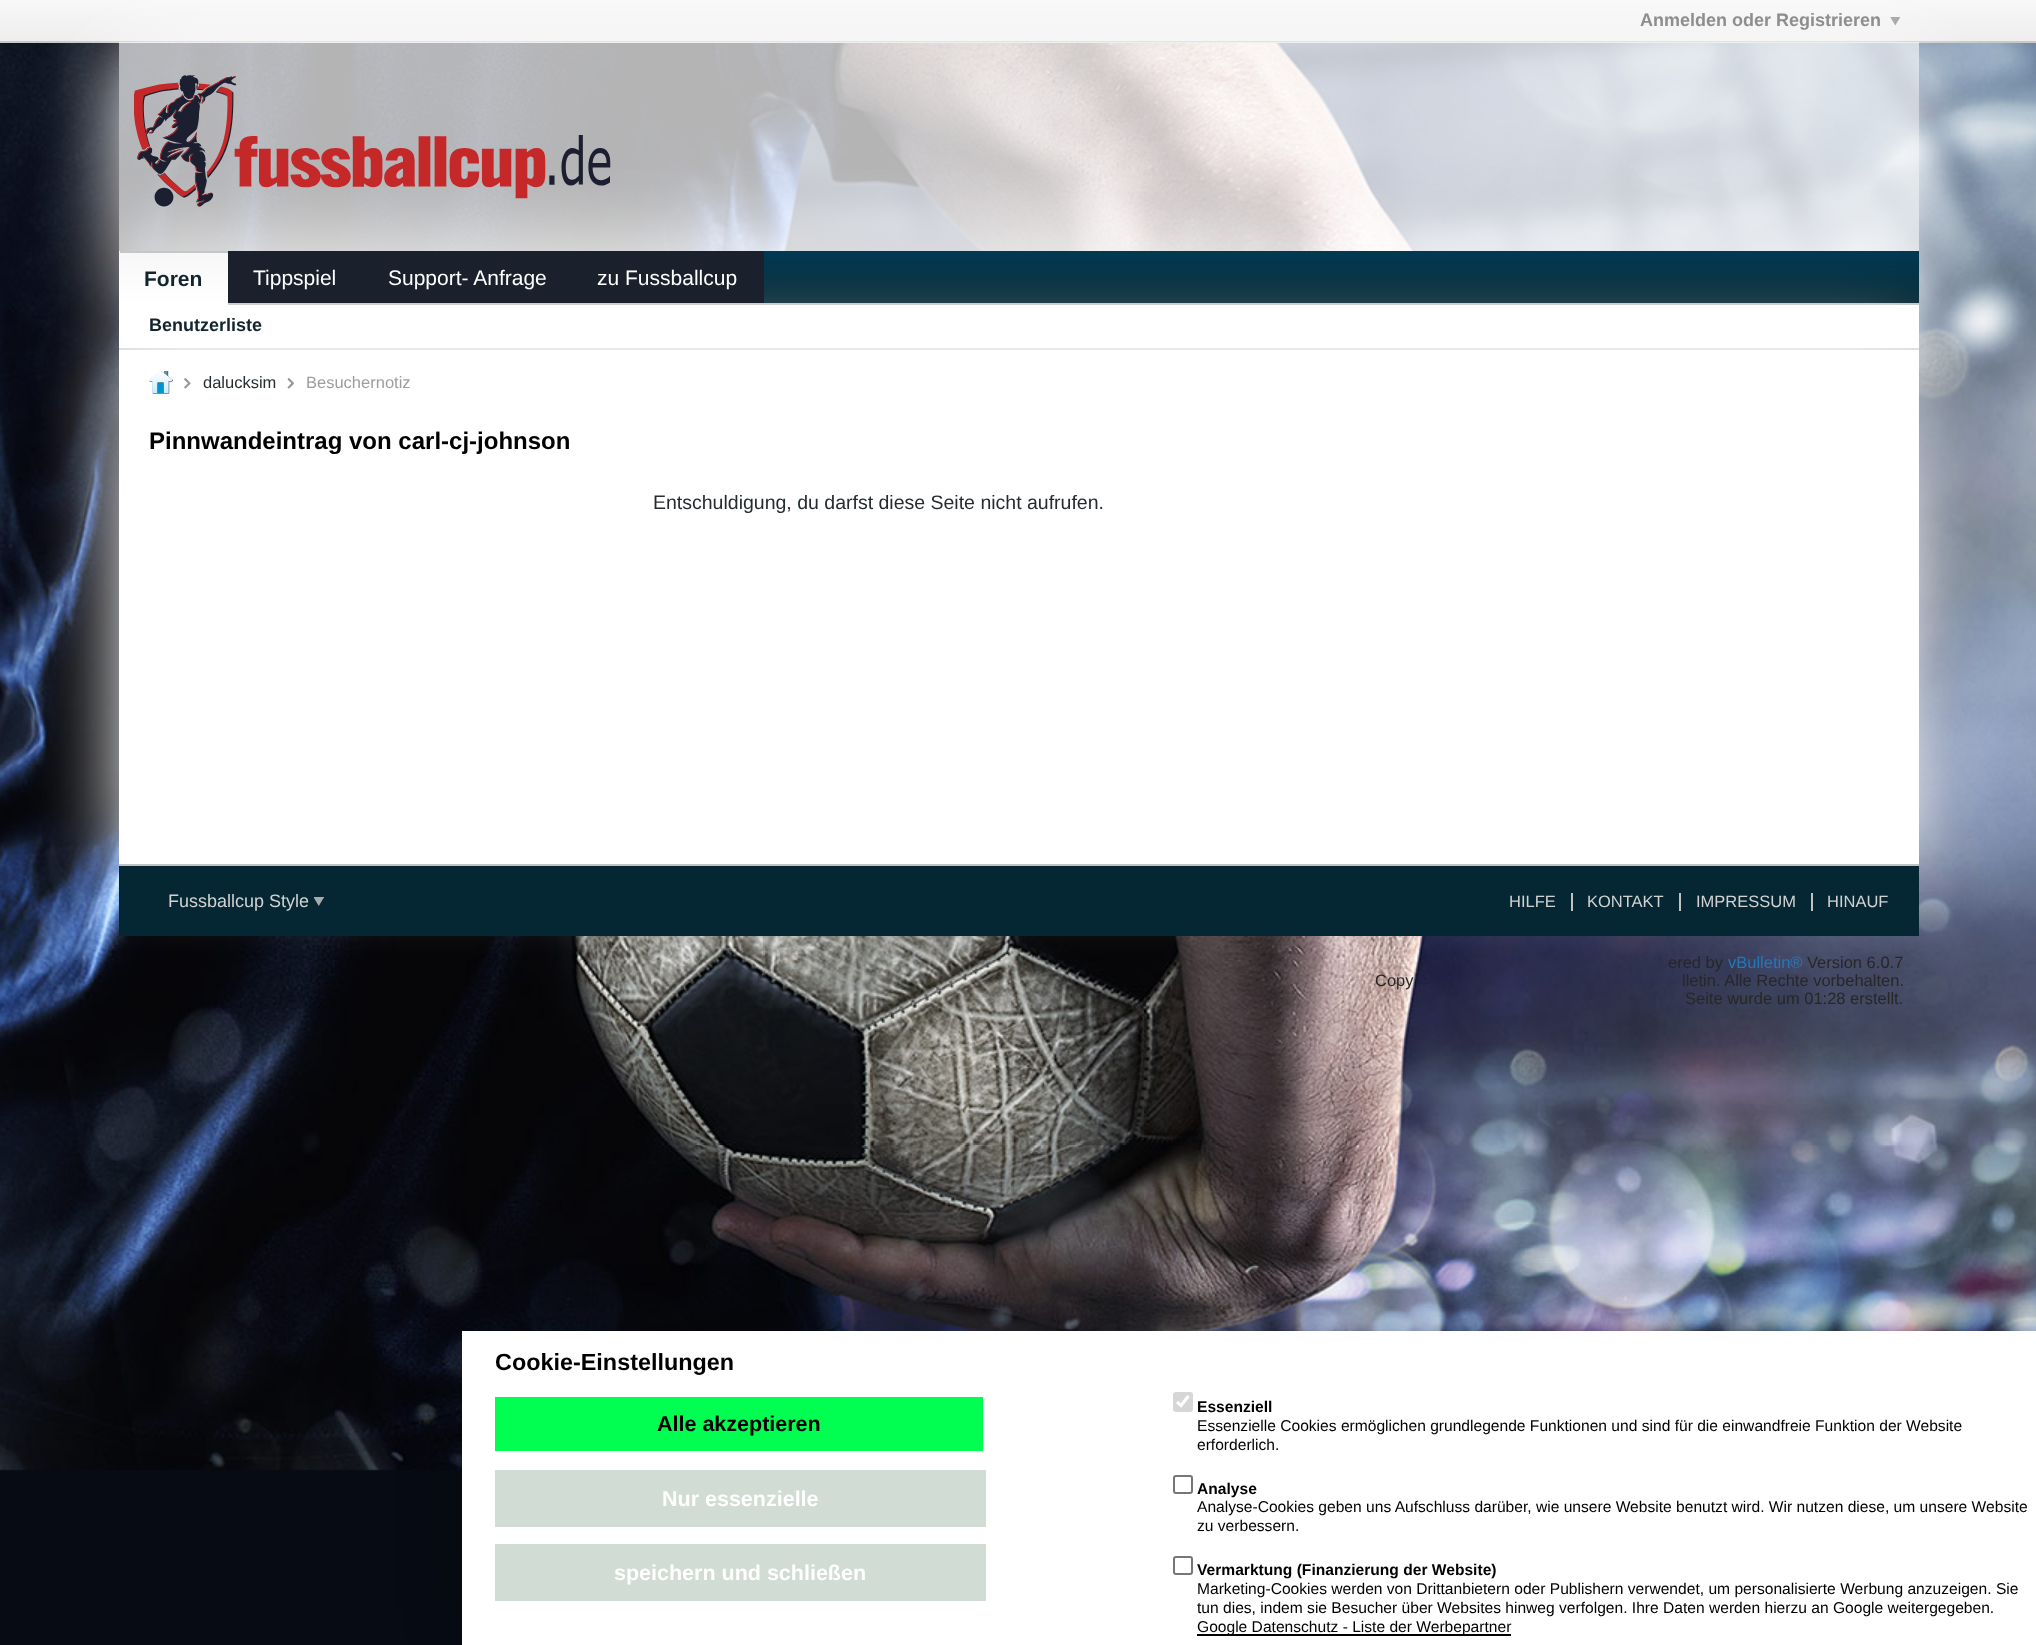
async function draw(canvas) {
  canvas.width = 2036;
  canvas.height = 1645;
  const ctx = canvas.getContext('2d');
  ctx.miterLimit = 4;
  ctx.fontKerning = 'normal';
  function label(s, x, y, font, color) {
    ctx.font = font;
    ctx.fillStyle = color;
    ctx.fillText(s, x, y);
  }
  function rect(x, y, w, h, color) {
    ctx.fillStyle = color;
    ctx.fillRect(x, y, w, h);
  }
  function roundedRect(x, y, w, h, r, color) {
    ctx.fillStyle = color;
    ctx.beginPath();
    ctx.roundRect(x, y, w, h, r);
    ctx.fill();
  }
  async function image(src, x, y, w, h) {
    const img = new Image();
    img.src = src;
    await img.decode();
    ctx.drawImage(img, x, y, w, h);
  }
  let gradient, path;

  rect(0, 0, 2036, 1645, '#070c14');
  await image('assets/img1.png', 0, 43, 2036, 1428);
  gradient = ctx.createLinearGradient(1019, 0, 1019, 41);
  gradient.addColorStop(0, '#f8f8f8');
  gradient.addColorStop(1, '#efedee');
  ctx.fillStyle = gradient;
  ctx.fillRect(0, 0, 2036, 41);
  rect(0, 41, 2036, 2, '#c7c8c9');
  ctx.save();
  path = new Path2D('M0 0H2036V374H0ZM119 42H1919V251H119Z');
  ctx.clip(path, 'evenodd');
  ctx.fillStyle = '#fff';
  ctx.filter = 'blur(40.5px)';
  ctx.beginPath();
  ctx.rect(119, 42, 1800, 209);
  ctx.fill();
  ctx.filter = 'none';
  ctx.restore();
  label('Anmelden oder Registrieren', 1640, 26, 'bold 18px Liberation Sans', '#8e8e8e');
  await image('assets/img2.png', 1890, 17, 11, 9);
  rect(119, 42, 1800, 209, '#ffffffb3');
  ctx.fillStyle = '#fff';
  ctx.filter = 'blur(40.5px)';
  ctx.beginPath();
  ctx.rect(119, 251, 1800, 54);
  ctx.fill();
  ctx.filter = 'none';
  await image('assets/img3.png', 134, 75, 477, 132);
  gradient = ctx.createLinearGradient(1019, 250, 1019, 303);
  gradient.addColorStop(0, '#013a54');
  gradient.addColorStop(1, '#052733');
  ctx.fillStyle = gradient;
  ctx.fillRect(119, 251, 1800, 52);
  rect(228, 303, 1691, 2, '#c4c7c8');
  rect(119, 305, 1800, 43, '#fff');
  rect(119, 348, 1800, 2, '#d3d5d6');
  ctx.fillStyle = '#fff';
  ctx.filter = 'blur(40.5px)';
  ctx.beginPath();
  ctx.rect(119, 350, 1800, 79);
  ctx.fill();
  ctx.filter = 'none';
  gradient = ctx.createLinearGradient(173, 200, 173, 252);
  gradient.addColorStop(0, '#f7f7f7');
  gradient.addColorStop(1, '#fff');
  ctx.fillStyle = gradient;
  ctx.fillRect(119, 251, 1, 1);
  gradient = ctx.createLinearGradient(173, 252, 173, 305);
  gradient.addColorStop(0, '#f7f7f7');
  gradient.addColorStop(1, '#fff');
  ctx.fillStyle = gradient;
  ctx.fillRect(119, 252, 109, 53);
  rect(120, 251, 108, 2, '#c4c7c8');
  label('Foren', 144, 286, 'bold 21px Liberation Sans', '#13242f');
  ctx.fillStyle = '#1a202c';
  ctx.beginPath();
  ctx.roundRect(228, 251, 134, 52, [1.5, 1.5, 0, 0]);
  ctx.fill();
  label('Tippspiel', 253, 285, '21px Liberation Sans', '#fff');
  ctx.fillStyle = '#1a202c';
  ctx.beginPath();
  ctx.roundRect(362, 251, 210, 52, [1.5, 1.5, 0, 0]);
  ctx.fill();
  label('Support- Anfrage', 388, 285, '21px Liberation Sans', '#fff');
  ctx.fillStyle = '#1a202c';
  ctx.beginPath();
  ctx.roundRect(572, 251, 192, 52, [1.5, 1.5, 0, 0]);
  ctx.fill();
  label('zu Fussballcup', 597, 285, '21px Liberation Sans', '#fff');
  rect(119, 350, 1800, 79, '#fff');
  ctx.filter = 'blur(40.5px)';
  ctx.beginPath();
  ctx.rect(119, 429, 1800, 435);
  ctx.fill();
  ctx.filter = 'none';
  label('Benutzerliste', 149, 331, 'bold 18px Liberation Sans', '#13242f');
  await image('assets/img4.png', 149, 371, 24, 23);
  await image('assets/img5.png', 184, 378, 7, 11);
  label('dalucksim', 203, 388, '16.5px Liberation Sans', '#252c2f');
  await image('assets/img6.png', 287, 378, 7, 11);
  label('Besuchernotiz', 306, 388, '16.5px Liberation Sans', '#9e9d9d');
  rect(119, 429, 1800, 435, '#fff');
  label('Pinnwandeintrag von carl-cj-johnson', 149, 449, 'bold 24px Liberation Sans', '#000');
  label('Entschuldigung, du darfst diese Seite nicht aufrufen.', 653, 509, '19.5px Liberation Sans', '#252c2f');
  rect(119, 866, 1800, 70, '#052733');
  rect(119, 864, 1800, 2, '#c2c2c2');
  label('Fussballcup Style', 168, 907, '18px Liberation Sans', '#d2d2d2');
  await image('assets/img7.png', 314, 897, 10, 9);
  label('HILFE', 1509, 907, '16.5px Liberation Sans', '#d2d2d2');
  label('KONTAKT', 1587, 907, '16.5px Liberation Sans', '#d2d2d2');
  rect(1571, 893, 2, 18, '#c2c2c2');
  label('IMPRESSUM', 1696, 907, '16.5px Liberation Sans', '#d2d2d2');
  rect(1679, 893, 2, 18, '#c2c2c2');
  label('HINAUF', 1827, 907, '16.5px Liberation Sans', '#d2d2d2');
  rect(1811, 893, 2, 18, '#c2c2c2');
  label('ered by', 1668, 968, '16.5px Liberation Sans', '#272727');
  label('vBulletin®', 1728, 968, '16.5px Liberation Sans', '#2379b5');
  label('Version 6.0.7', 1807, 968, '16.5px Liberation Sans', '#272727');
  label('Copy', 1375, 986, '16.5px Liberation Sans', '#272727');
  label('lletin. Alle Rechte vorbehalten.', 1682, 986, '16.5px Liberation Sans', '#272727');
  label('Seite wurde um 01:28 erstellt.', 1685, 1004, '16.5px Liberation Sans', '#272727');
  ctx.fillStyle = '#000000cc';
  ctx.filter = 'blur(45px)';
  ctx.beginPath();
  ctx.rect(501, 1370, 1497, 237);
  ctx.fill();
  ctx.filter = 'none';
  rect(462, 1331, 1574, 314, '#fff');
  label('Cookie-Einstellungen', 495, 1370, 'bold 23.4px Liberation Sans', '#000');
  rect(495, 1397, 488, 54, '#00ff51');
  label('Alle akzeptieren', 657, 1431, 'bold 21.5px Liberation Sans', '#000');
  roundedRect(1173, 1392, 20, 20, 3, '#d6d6d6');
  path = new Path2D('M1177 1402L1181 1405.5L1188.5 1396');
  ctx.strokeStyle = '#fff';
  ctx.lineWidth = 3.1;
  ctx.stroke(path);
  label('Essenziell', 1197, 1412, 'bold 15.6px Liberation Sans', '#000');
  label('Essenzielle Cookies ermöglichen grundlegende Funktionen und sind für die einwandfreie Funktion der Website', 1197, 1431, '15.6px Liberation Sans', '#000');
  label('erforderlich.', 1197, 1450, '15.6px Liberation Sans', '#000');
  ctx.beginPath();
  ctx.roundRect(1174, 1476, 18, 17, 2);
  ctx.strokeStyle = '#767676';
  ctx.lineWidth = 2;
  ctx.stroke();
  label('Analyse', 1197, 1494, 'bold 15.6px Liberation Sans', '#000');
  label('Analyse-Cookies geben uns Aufschluss darüber, wie unsere Website benutzt wird. Wir nutzen diese, um unsere Website', 1197, 1512, '15.6px Liberation Sans', '#000');
  label('zu verbessern.', 1197, 1531, '15.6px Liberation Sans', '#000');
  ctx.beginPath();
  ctx.roundRect(1174, 1557, 18, 17, 2);
  ctx.stroke();
  label('Vermarktung (Finanzierung der Website)', 1197, 1575, 'bold 15.6px Liberation Sans', '#000');
  label('Marketing-Cookies werden von Drittanbietern oder Publishern verwendet, um personalisierte Werbung anzuzeigen. Sie', 1197, 1594, '15.6px Liberation Sans', '#000');
  label('tun dies, indem sie Besucher über Websites hinweg verfolgen. Ihre Daten werden hierzu an Google weitergegeben.', 1197, 1613, '15.6px Liberation Sans', '#000');
  rect(1197, 1634, 314, 2, '#000');
  label('Google Datenschutz - Liste der Werbepartner', 1197, 1632, '15.6px Liberation Sans', '#000');
  rect(495, 1470, 491, 57, '#d0dcd4');
  label('Nur essenzielle', 662, 1506, 'bold 21.5px Liberation Sans', '#fff');
  rect(495, 1544, 491, 57, '#d0dcd4');
  label('speichern und schließen', 614, 1580, 'bold 21.5px Liberation Sans', '#fff');
}

draw(document.querySelector('canvas'));
